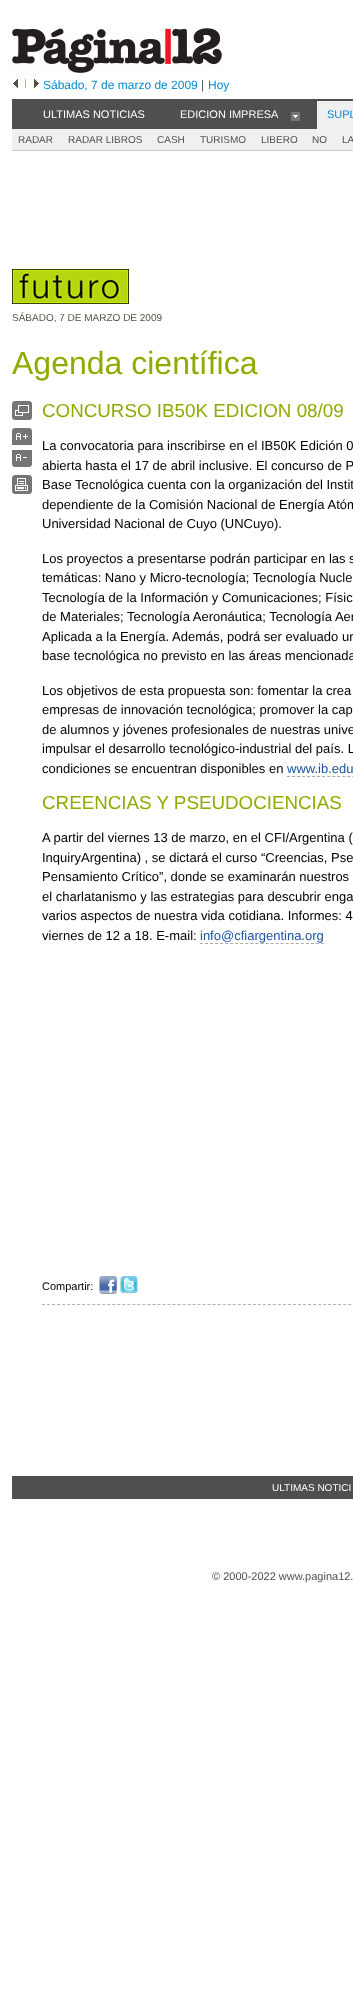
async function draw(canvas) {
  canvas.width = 353;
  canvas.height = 1999;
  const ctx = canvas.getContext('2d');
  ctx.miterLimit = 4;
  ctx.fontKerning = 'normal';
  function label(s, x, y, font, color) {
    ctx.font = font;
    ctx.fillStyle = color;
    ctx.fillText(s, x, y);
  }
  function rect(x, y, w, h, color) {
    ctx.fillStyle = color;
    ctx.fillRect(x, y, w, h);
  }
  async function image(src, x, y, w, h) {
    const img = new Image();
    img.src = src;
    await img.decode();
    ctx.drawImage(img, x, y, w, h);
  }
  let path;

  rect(0, 0, 353, 1999, '#fff');
  await image('assets/img1.png', 12, 28, 210, 45);
  await image('assets/img2.png', 13, 79, 5, 9);
  rect(25, 79, 1, 9, '#b4b2a8');
  await image('assets/img3.png', 34, 79, 5, 9);
  label('Sábado, 7 de marzo de 2009', 43, 89, '12px Liberation Sans', '#028ccd');
  label('|', 201, 89, '12px Liberation Sans', '#504f4f');
  label('Hoy', 208, 89, '12px Liberation Sans', '#028ccd');
  rect(12, 99, 341, 30, '#504f4f');
  label('ULTIMAS NOTICIAS', 43, 118, '11px Liberation Sans', '#fff');
  label('EDICION IMPRESA', 180, 118, '11px Liberation Sans', '#fff');
  await image('assets/img4.png', 291, 112, 9, 9);
  rect(317, 101, 36, 28, '#f0f0f0');
  label('SUPL', 327, 118, '11px Liberation Sans', '#028ccd');
  rect(12, 129, 341, 21, '#f0f0f0');
  rect(12, 150, 341, 1, '#ccc9bd');
  label('RADAR', 18, 143, '10px Liberation Sans', '#504f4f');
  label('RADAR LIBROS', 68, 143, '10px Liberation Sans', '#504f4f');
  label('CASH', 157, 143, '10px Liberation Sans', '#504f4f');
  label('TURISMO', 200, 143, '10px Liberation Sans', '#504f4f');
  label('LIBERO', 261, 143, '10px Liberation Sans', '#504f4f');
  label('NO', 312, 143, '10px Liberation Sans', '#504f4f');
  label('LA', 342, 143, '10px Liberation Sans', '#504f4f');
  await image('assets/img5.png', 12, 269, 117, 35);
  label('SÁBADO, 7 DE MARZO DE 2009', 12, 321, '10px Liberation Sans', '#565144');
  label('Agenda científica', 12, 374, '32px Liberation Sans', '#91aa01');
  await image('assets/img6.png', 12, 401, 20, 19);
  await image('assets/img7.png', 12, 428, 20, 17);
  await image('assets/img8.png', 12, 450, 20, 17);
  await image('assets/img9.png', 12, 475, 20, 19);
  label('CONCURSO IB50K EDICION 08/09', 42, 417, '18.8px Liberation Sans', '#91aa01');
  label('La convocatoria para inscribirse en el IB50K Edición 0', 42, 450, '13px Liberation Sans', '#000');
  label('abierta hasta el 17 de abril inclusive. El concurso de P', 42, 470, '13px Liberation Sans', '#000');
  label('Base Tecnológica cuenta con la organización del Instit', 42, 489, '13px Liberation Sans', '#000');
  label('dependiente de la Comisión Nacional de Energía Atóm', 42, 509, '13px Liberation Sans', '#000');
  label('Universidad Nacional de Cuyo (UNCuyo).', 42, 528, '13px Liberation Sans', '#000');
  label('Los proyectos a presentarse podrán participar en las s', 42, 563, '13px Liberation Sans', '#000');
  label('temáticas: Nano y Micro-tecnología; Tecnología Nucle', 42, 582, '13px Liberation Sans', '#000');
  label('Tecnología de la Información y Comunicaciones; Físic', 42, 602, '13px Liberation Sans', '#000');
  label('de Materiales; Tecnología Aeronáutica; Tecnología Aer', 42, 621, '13px Liberation Sans', '#000');
  label('Aplicada a la Energía. Además, podrá ser evaluado un', 42, 641, '13px Liberation Sans', '#000');
  label('base tecnológica no previsto en las áreas mencionada', 42, 660, '13px Liberation Sans', '#000');
  label('Los objetivos de esta propuesta son: fomentar la crea', 42, 695, '13px Liberation Sans', '#000');
  label('empresas de innovación tecnológica; promover la cap', 42, 714, '13px Liberation Sans', '#000');
  label('de alumnos y jóvenes profesionales de nuestras unive', 42, 734, '13px Liberation Sans', '#000');
  label('impulsar el desarrollo tecnológico-industrial del país. L', 42, 753, '13px Liberation Sans', '#000');
  label('condiciones se encuentran disponibles en', 42, 773, '13px Liberation Sans', '#000');
  label('www.ib.edu', 287, 773, '13px Liberation Sans', '#1d53a1');
  path = new Path2D('M287 776.5H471');
  ctx.strokeStyle = '#aaa';
  ctx.setLineDash([3, 2.03]);
  ctx.stroke(path);
  label('CREENCIAS Y PSEUDOCIENCIAS', 42, 809, '18.8px Liberation Sans', '#91aa01');
  label('A partir del viernes 13 de marzo, en el CFI/Argentina (', 42, 842, '13px Liberation Sans', '#000');
  label('InquiryArgentina) , se dictará el curso “Creencias, Pse', 42, 862, '13px Liberation Sans', '#000');
  label('Pensamiento Crítico”, donde se examinarán nuestros', 42, 881, '13px Liberation Sans', '#000');
  label('el charlatanismo y las estrategias para descubrir enga', 42, 901, '13px Liberation Sans', '#000');
  label('varios aspectos de nuestra vida cotidiana. Informes: 4', 42, 920, '13px Liberation Sans', '#000');
  label('viernes de 12 a 18. E-mail:', 42, 940, '13px Liberation Sans', '#000');
  label('info@cfiargentina.org', 200, 940, '13px Liberation Sans', '#1d53a1');
  path = new Path2D('M200 943.5H324');
  ctx.setLineDash([3, 2.04]);
  ctx.stroke(path);
  path = new Path2D('M42 1304.5H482');
  ctx.strokeStyle = '#b4b2a8';
  ctx.setLineDash([3, 2.02]);
  ctx.stroke(path);
  label('Compartir:', 42, 1290, '11px Liberation Sans', '#000');
  await image('assets/img10.png', 99, 1276, 18, 18);
  await image('assets/img11.png', 120, 1276, 18, 18);
  rect(12, 1476, 341, 23, '#504f4f');
  label('ULTIMAS NOTICI', 272, 1491, '10px Liberation Sans', '#fff');
  label('© 2000-2022 www.pagina12.', 212, 1580, '11px Liberation Sans', '#504f4f');
}

draw(document.querySelector('canvas'));
